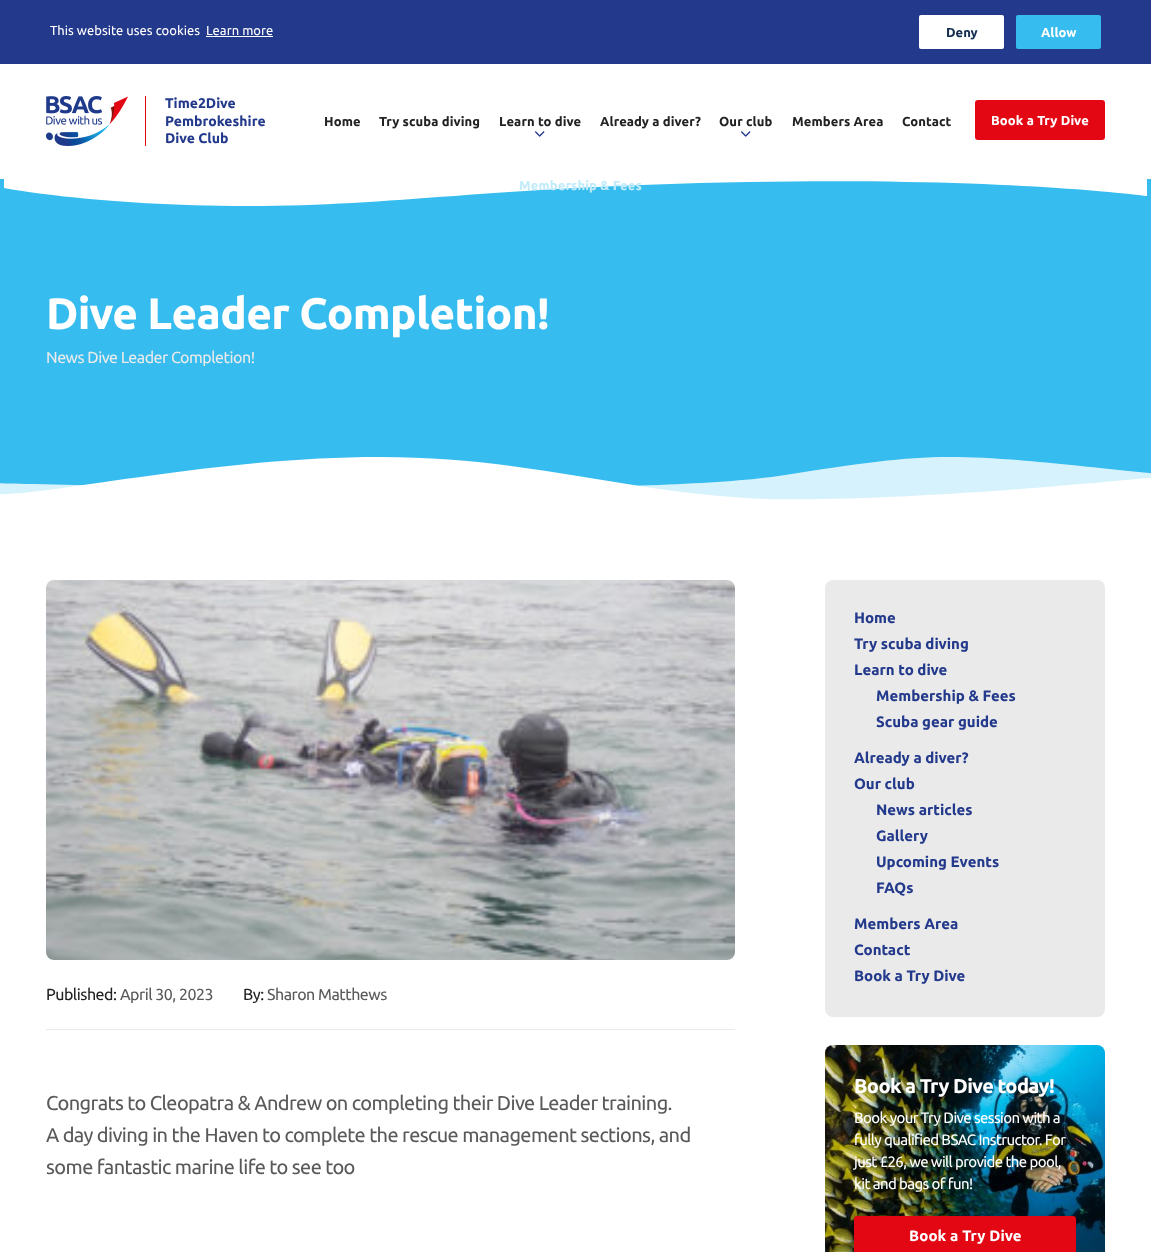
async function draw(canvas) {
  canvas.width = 1151;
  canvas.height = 1252;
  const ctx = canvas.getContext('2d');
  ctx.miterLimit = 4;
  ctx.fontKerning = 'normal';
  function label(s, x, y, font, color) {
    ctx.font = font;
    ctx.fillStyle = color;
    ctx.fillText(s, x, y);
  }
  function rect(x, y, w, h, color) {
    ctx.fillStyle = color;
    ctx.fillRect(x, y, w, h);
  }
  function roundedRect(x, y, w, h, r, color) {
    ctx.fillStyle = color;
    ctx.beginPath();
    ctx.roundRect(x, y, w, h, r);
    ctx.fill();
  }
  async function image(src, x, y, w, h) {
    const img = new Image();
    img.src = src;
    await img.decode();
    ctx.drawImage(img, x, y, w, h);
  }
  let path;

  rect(0, 0, 1151, 1252, '#fff');
  rect(0, 0, 1151, 64, '#23398b');
  label('This website uses cookies', 50, 35, '13px Ubuntu', '#fff');
  label('Learn more', 206, 35, '13px Ubuntu', '#fff');
  rect(206, 36, 67, 1, '#fff');
  roundedRect(919, 15, 85, 34, 2, '#fff');
  label('Deny', 946, 37, 'bold 13px Ubuntu', '#132c50');
  roundedRect(1016, 15, 85, 34, 2, '#36bcee');
  label('Allow', 1041, 37, 'bold 13px Ubuntu', '#fff');
  rect(145, 96, 1, 50, '#e30613');
  await image('assets/img1.png', 46, 96, 82, 50);
  label('Time2Dive', 165, 108, 'bold 14px Ubuntu', '#23398b');
  label('Pembrokeshire', 165, 126, 'bold 14px Ubuntu', '#23398b');
  label('Dive Club', 165, 143, 'bold 14px Ubuntu', '#23398b');
  ctx.letterSpacing = '0.1px';
  label('Home', 324, 126, 'bold 13px Ubuntu', '#222');
  label('Try scuba diving', 379, 126, 'bold 13px Ubuntu', '#222');
  label('Learn to dive', 499, 126, 'bold 13px Ubuntu', '#222');
  await image('assets/img2.png', 535, 131, 10, 6);
  rect(0, 179, 1151, 321, '#36bcee');
  ctx.fillStyle = '#fff';
  path = new Path2D('M1147 196C1147 196 1009 177 747 182C484 187 398 206 248 206C98 206 4 188 4 188V179H1147Z');
  ctx.fill(path, 'evenodd');
  label('Membership & Fees', 519, 190, 'bold 13px Ubuntu', '#c2ebfa');
  label('Already a diver?', 600, 126, 'bold 13px Ubuntu', '#222');
  label('Our club', 719, 126, 'bold 13px Ubuntu', '#222');
  await image('assets/img2.png', 741, 131, 10, 6);
  label('Members Area', 792, 126, 'bold 13px Ubuntu', '#222');
  label('Contact', 902, 126, 'bold 13px Ubuntu', '#222');
  roundedRect(975, 100, 130, 40, 3, '#e30613');
  label('Book a Try Dive', 991, 125, 'bold 13px Ubuntu', '#fff');
  ctx.letterSpacing = '-0.6px';
  label('Dive Leader Completion!', 46, 329, 'bold 44px Ubuntu', '#fff');
  ctx.letterSpacing = '-0.5px';
  label('News Dive Leader Completion!', 46, 363, '16px Ubuntu', '#eaeaea');
  await image('assets/img3.png', 0, 457, 1151, 46);
  await image('assets/img4.png', 46, 580, 689, 380);
  rect(46, 1029, 689, 1, '#eaeaea');
  label('Published:', 46, 1000, '16px Ubuntu', '#222');
  label('April 30, 2023', 120, 1000, '16px Ubuntu', '#5a5a5a');
  label('By:', 243, 1000, '16px Ubuntu', '#222');
  label('Sharon Matthews', 267, 1000, '16px Ubuntu', '#5a5a5a');
  ctx.letterSpacing = '-0.6px';
  label('Congrats to Cleopatra & Andrew on completing their Dive Leader training.', 46, 1110, '20px Ubuntu', '#5a5a5a');
  label('A day diving in the Haven to complete the rescue management sections, and', 46, 1142, '20px Ubuntu', '#5a5a5a');
  label('some fantastic marine life to see too', 46, 1174, '20px Ubuntu', '#5a5a5a');
  roundedRect(825, 580, 280, 437, 8, '#eaeaea');
  ctx.letterSpacing = '0px';
  label('Home', 854, 623, 'bold 15px Ubuntu', '#23398b');
  label('Try scuba diving', 854, 649, 'bold 15px Ubuntu', '#23398b');
  label('Learn to dive', 854, 675, 'bold 15px Ubuntu', '#23398b');
  label('Membership & Fees', 876, 701, 'bold 15px Ubuntu', '#23398b');
  label('Scuba gear guide', 876, 727, 'bold 15px Ubuntu', '#23398b');
  label('Already a diver?', 854, 763, 'bold 15px Ubuntu', '#23398b');
  label('Our club', 854, 789, 'bold 15px Ubuntu', '#23398b');
  label('News articles', 876, 815, 'bold 15px Ubuntu', '#23398b');
  label('Gallery', 876, 841, 'bold 15px Ubuntu', '#23398b');
  label('Upcoming Events', 876, 867, 'bold 15px Ubuntu', '#23398b');
  label('FAQs', 876, 893, 'bold 15px Ubuntu', '#23398b');
  label('Members Area', 854, 929, 'bold 15px Ubuntu', '#23398b');
  label('Contact', 854, 955, 'bold 15px Ubuntu', '#23398b');
  label('Book a Try Dive', 854, 981, 'bold 15px Ubuntu', '#23398b');
  await image('assets/img5.png', 825, 1045, 280, 207);
  ctx.letterSpacing = '-0.6px';
  label('Book a Try Dive today!', 854, 1093, 'bold 20px Ubuntu', '#fff');
  label('Book your Try Dive session with a', 854, 1123, '15px Ubuntu', '#fff');
  label('fully qualified BSAC Instructor. For', 854, 1145, '15px Ubuntu', '#fff');
  label('just £26, we will provide the pool,', 854, 1167, '15px Ubuntu', '#fff');
  label('kit and bags of fun!', 854, 1189, '15px Ubuntu', '#fff');
  roundedRect(854, 1216, 222, 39, 3, '#e30613');
  ctx.letterSpacing = '0.1px';
  label('Book a Try Dive', 909, 1241, 'bold 15px Ubuntu', '#fff');
}

draw(document.querySelector('canvas'));
